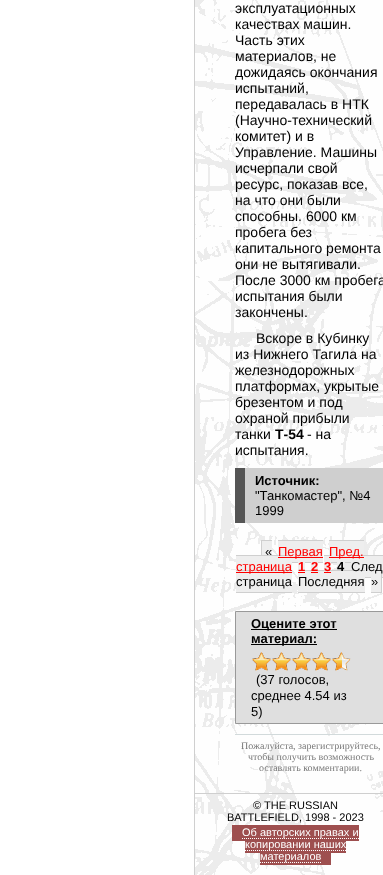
async function draw(canvas) {
  canvas.width = 383;
  canvas.height = 875;
  const ctx = canvas.getContext('2d');
  ctx.miterLimit = 4;
  ctx.fontKerning = 'normal';
  function label(s, x, y, font, color) {
    ctx.font = font;
    ctx.fillStyle = color;
    ctx.fillText(s, x, y);
  }
  function rect(x, y, w, h, color) {
    ctx.fillStyle = color;
    ctx.fillRect(x, y, w, h);
  }
  async function image(src, x, y, w, h) {
    const img = new Image();
    img.src = src;
    await img.decode();
    ctx.drawImage(img, x, y, w, h);
  }
  let path;

  rect(0, 0, 383, 875, '#fff');
  await image('assets/img1.png', 195, 0, 188, 875);
  rect(194, 0, 1, 875, '#cfcfcf');
  label('эксплуатационных', 235, 13, '14px Liberation Sans', '#000');
  label('качествах машин.', 235, 29, '14px Liberation Sans', '#000');
  label('Часть этих', 235, 45, '14px Liberation Sans', '#000');
  label('материалов, не', 235, 61, '14px Liberation Sans', '#000');
  label('дожидаясь окончания', 235, 77, '14px Liberation Sans', '#000');
  label('испытаний,', 235, 93, '14px Liberation Sans', '#000');
  label('передавалась в НТК', 235, 109, '14px Liberation Sans', '#000');
  label('(Научно-технический', 235, 125, '14px Liberation Sans', '#000');
  label('комитет) и в', 235, 141, '14px Liberation Sans', '#000');
  label('Управление. Машины', 235, 157, '14px Liberation Sans', '#000');
  label('исчерпали свой', 235, 173, '14px Liberation Sans', '#000');
  label('ресурс, показав все,', 235, 189, '14px Liberation Sans', '#000');
  label('на что они были', 235, 205, '14px Liberation Sans', '#000');
  label('способны. 6000 км', 235, 221, '14px Liberation Sans', '#000');
  label('пробега без', 235, 237, '14px Liberation Sans', '#000');
  label('капитального ремонта', 235, 253, '14px Liberation Sans', '#000');
  label('они не вытягивали.', 235, 269, '14px Liberation Sans', '#000');
  label('После 3000 км пробега', 235, 285, '14px Liberation Sans', '#000');
  label('испытания были', 235, 301, '14px Liberation Sans', '#000');
  label('закончены.', 235, 317, '14px Liberation Sans', '#000');
  label('Вскоре в Кубинку', 256, 343, '14px Liberation Sans', '#000');
  label('из Нижнего Тагила на', 235, 359, '14px Liberation Sans', '#000');
  label('железнодорожных', 235, 375, '14px Liberation Sans', '#000');
  label('платформах, укрытые', 235, 391, '14px Liberation Sans', '#000');
  label('брезентом и под', 235, 407, '14px Liberation Sans', '#000');
  label('охраной прибыли', 235, 423, '14px Liberation Sans', '#000');
  label('танки', 235, 439, '14px Liberation Sans', '#000');
  label('Т-54', 275, 439, 'bold 14px Liberation Sans', '#000');
  label('- на', 307, 439, '14px Liberation Sans', '#000');
  label('испытания.', 235, 455, '14px Liberation Sans', '#000');
  rect(245, 468, 138, 55, '#cfcfcf');
  rect(235, 468, 10, 55, '#555');
  label('Источник:', 255, 485, 'bold 13px Liberation Sans', '#000');
  label('"Танкомастер", №4', 255, 500, '13px Liberation Sans', '#000');
  label('1999', 255, 515, '13px Liberation Sans', '#000');
  rect(262, 541, 10, 14, '#eee');
  rect(261, 540, 11, 1, '#cfcfcf');
  rect(261, 540, 1, 23, '#cfcfcf');
  rect(278, 541, 45, 21, '#eee');
  rect(236, 555, 56, 1, '#cfcfcf');
  label('«', 265, 556, '13px Liberation Sans', '#000');
  rect(292, 562, 31, 1, '#cfcfcf');
  rect(298, 555, 7, 23, '#eee');
  rect(298, 555, 7, 1, '#cfcfcf');
  rect(311, 555, 7, 23, '#eee');
  rect(311, 555, 7, 1, '#cfcfcf');
  rect(236, 556, 56, 14, '#eee');
  rect(278, 557, 45, 1, '#f00');
  label('Первая', 278, 556, '13px Liberation Sans', '#f00');
  rect(278, 540, 45, 1, '#cfcfcf');
  rect(329, 541, 35, 21, '#eee');
  rect(329, 562, 22, 1, '#cfcfcf');
  rect(324, 555, 7, 23, '#eee');
  rect(324, 555, 7, 1, '#cfcfcf');
  rect(337, 555, 8, 23, '#eee');
  rect(337, 555, 8, 1, '#cfcfcf');
  rect(351, 555, 32, 1, '#cfcfcf');
  rect(351, 556, 32, 21, '#eee');
  rect(329, 557, 35, 1, '#f00');
  label('Пред.', 329, 556, '13px Liberation Sans', '#f00');
  rect(329, 540, 35, 1, '#cfcfcf');
  rect(236, 570, 56, 1, '#cfcfcf');
  rect(236, 571, 56, 21, '#eee');
  rect(236, 572, 56, 1, '#f00');
  label('страница', 236, 571, '13px Liberation Sans', '#f00');
  rect(298, 570, 67, 1, '#cfcfcf');
  label('1', 298, 571, 'bold 13px Liberation Sans', '#f00');
  rect(298, 571, 67, 21, '#eee');
  rect(298, 572, 7, 1, '#f00');
  label('2', 311, 571, 'bold 13px Liberation Sans', '#f00');
  rect(311, 572, 7, 1, '#f00');
  label('3', 324, 571, 'bold 13px Liberation Sans', '#f00');
  rect(324, 572, 7, 1, '#f00');
  label('4', 337, 571, 'bold 13px Liberation Sans', '#000');
  rect(371, 570, 11, 1, '#cfcfcf');
  rect(365, 577, 18, 1, '#cfcfcf');
  rect(381, 570, 1, 23, '#cfcfcf');
  label('След', 351, 571, '13px Liberation Sans', '#000');
  label('страница', 236, 586, '13px Liberation Sans', '#000');
  rect(236, 592, 56, 1, '#cfcfcf');
  label('Последняя', 298, 586, '13px Liberation Sans', '#000');
  rect(298, 592, 67, 1, '#cfcfcf');
  rect(371, 577, 10, 15, '#eee');
  label('»', 371, 586, '13px Liberation Sans', '#000');
  rect(371, 592, 11, 1, '#cfcfcf');
  ctx.fillStyle = '#dfdfdf';
  ctx.beginPath();
  ctx.rect(235.5, 611.5, 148, 112);
  ctx.fill();
  ctx.strokeStyle = '#999';
  ctx.stroke();
  rect(251, 629, 86, 1, '#000');
  label('Оцените этот', 251, 628, 'bold 13px Liberation Sans', '#000');
  rect(251, 644, 66, 1, '#000');
  label('материал:', 251, 643, 'bold 13px Liberation Sans', '#000');
  await image('assets/img2.png', 252, 652, 99, 19);
  await image('assets/img3.png', 252, 652, 90, 19);
  label('(37 голосов,', 256, 684, '13px Liberation Sans', '#000');
  label('среднее 4.54 из', 251, 700, '13px Liberation Sans', '#000');
  label('5)', 251, 716, '13px Liberation Sans', '#000');
  rect(235, 734, 148, 1, '#d2dadb');
  label('Пожалуйста, зарегистрируйтесь,', 241, 749, '10px Liberation Serif', '#777');
  label('чтобы получить возможность', 248, 760, '10px Liberation Serif', '#777');
  label('оставлять комментарии.', 259, 771, '10px Liberation Serif', '#777');
  rect(195, 793, 188, 1, '#cfcfcf');
  label('© THE RUSSIAN', 253, 809, '11px Liberation Sans', '#000');
  label('BATTLEFIELD, 1998 - 2023', 227, 821, '11px Liberation Sans', '#000');
  rect(232, 825, 127, 16, '#9e4f4f');
  path = new Path2D('M242 838.5H359');
  ctx.strokeStyle = '#fff';
  ctx.setLineDash([1, 1]);
  ctx.stroke(path);
  label('Об авторских правах и', 242, 836, '11px Liberation Sans', '#fff');
  rect(245, 841, 101, 12, '#9e4f4f');
  path = new Path2D('M245 850.5H346');
  ctx.stroke(path);
  label('копировании наших', 245, 848, '11px Liberation Sans', '#fff');
  rect(260, 853, 71, 12, '#9e4f4f');
  path = new Path2D('M260 862.5H321');
  ctx.stroke(path);
  label('материалов', 260, 860, '11px Liberation Sans', '#fff');
}

draw(document.querySelector('canvas'));
